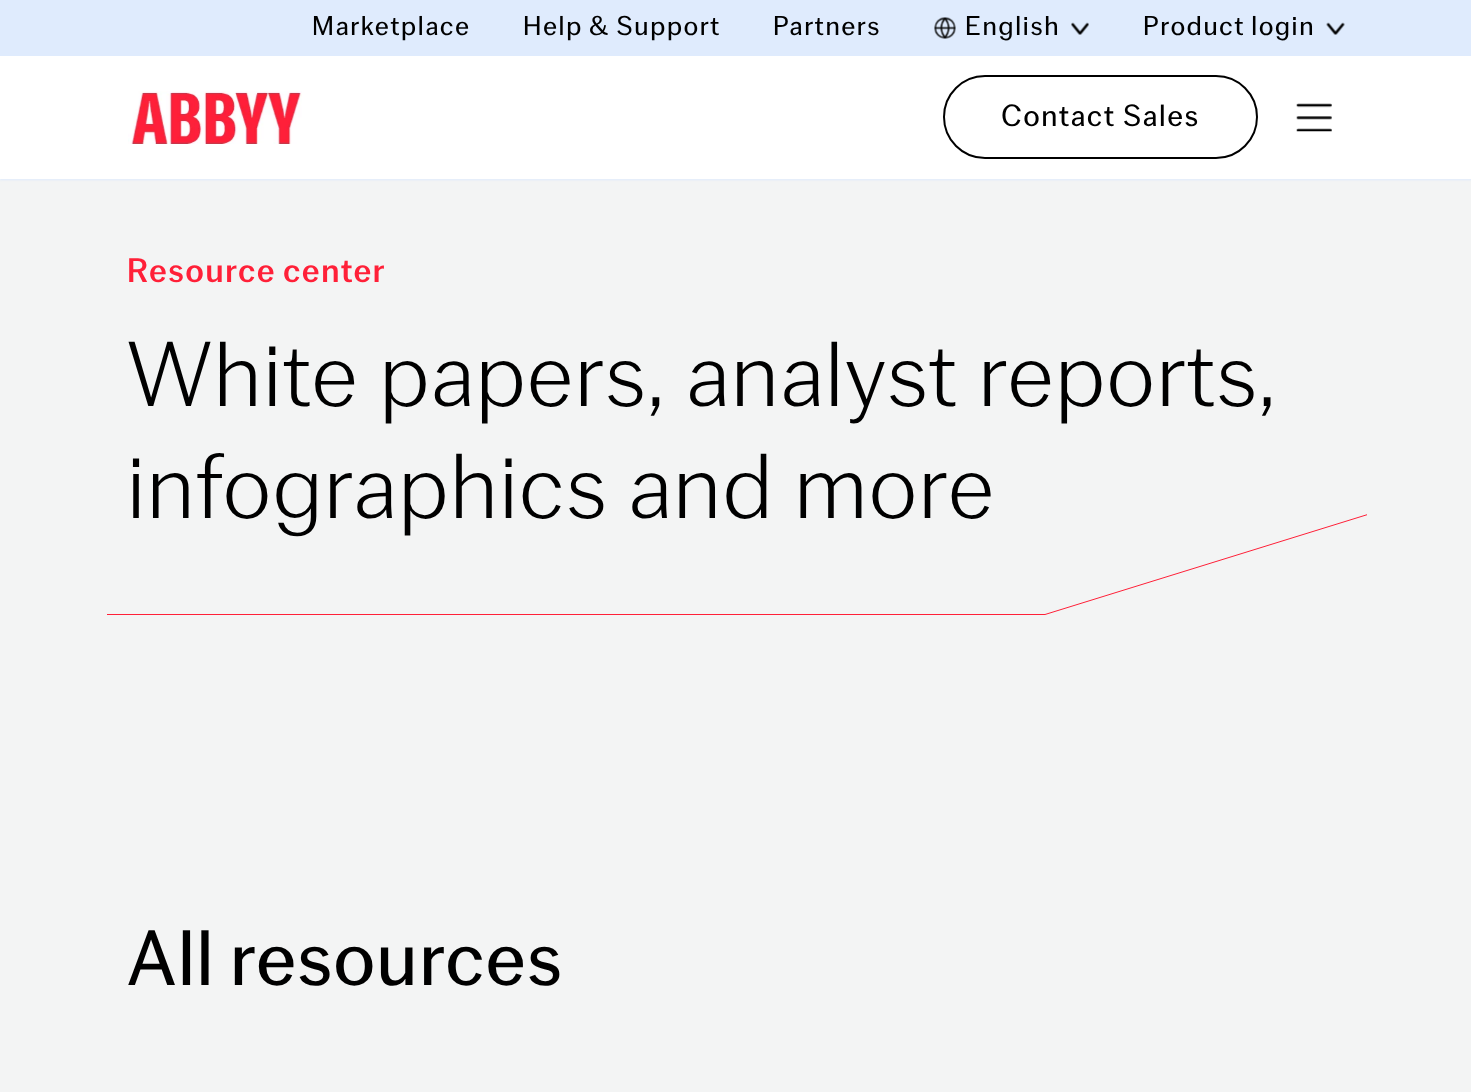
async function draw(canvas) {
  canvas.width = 1471;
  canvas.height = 1092;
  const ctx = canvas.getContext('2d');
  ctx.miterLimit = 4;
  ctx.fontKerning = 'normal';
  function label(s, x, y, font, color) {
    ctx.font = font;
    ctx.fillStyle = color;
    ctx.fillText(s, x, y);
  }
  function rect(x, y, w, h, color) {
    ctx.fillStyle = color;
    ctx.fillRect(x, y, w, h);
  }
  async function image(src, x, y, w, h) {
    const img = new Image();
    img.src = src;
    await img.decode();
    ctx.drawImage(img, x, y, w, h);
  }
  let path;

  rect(0, 0, 1471, 1092, '#f3f4f4');
  rect(0, 0, 1471, 56, '#dfebfd');
  ctx.letterSpacing = '1.75px';
  label('Marketplace', 312, 35, '28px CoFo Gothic', '#000');
  label('Help & Support', 523, 35, '28px CoFo Gothic', '#000');
  label('Partners', 773, 35, '28px CoFo Gothic', '#000');
  await image('assets/img1.png', 934, 17, 22, 22);
  label('English', 965, 35, '28px CoFo Gothic', '#000');
  await image('assets/img2.png', 1071, 22, 18, 13);
  label('Product login', 1143, 35, '28px CoFo Gothic', '#000');
  await image('assets/img3.png', 1326, 22, 19, 13);
  ctx.fillStyle = '#dfebfd';
  ctx.filter = 'blur(1px)';
  ctx.beginPath();
  ctx.rect(0, 58, 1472, 122);
  ctx.fill();
  ctx.filter = 'none';
  rect(0, 56, 1471, 123, '#fff');
  await image('assets/img4.png', 128, 91, 174, 53);
  ctx.beginPath();
  ctx.roundRect(944, 76, 313, 82, 41);
  ctx.strokeStyle = '#000';
  ctx.lineWidth = 2;
  ctx.stroke();
  label('Contact Sales', 1001, 126, '31.5px CoFo Gothic', '#000');
  await image('assets/img5.png', 1296, 103, 36, 29);
  label('Resource center', 127, 282, '500 35px CoFo Gothic', '#ff2038');
  label('White papers, analyst reports,', 127, 406, '300 94.5px CoFo Gothic', '#000');
  ctx.save();
  ctx.beginPath();
  ctx.rect(107, 488, 1260, 128);
  ctx.clip();
  path = new Path2D('M1450 489L1045 614.5H107');
  ctx.strokeStyle = '#ff2038';
  ctx.lineWidth = 1;
  ctx.stroke(path);
  ctx.restore();
  label('infographics and more', 127, 518, '300 94.5px CoFo Gothic', '#000');
  label('All resources', 127, 985, '80.5px CoFo Gothic', '#000');
}

draw(document.querySelector('canvas'));
